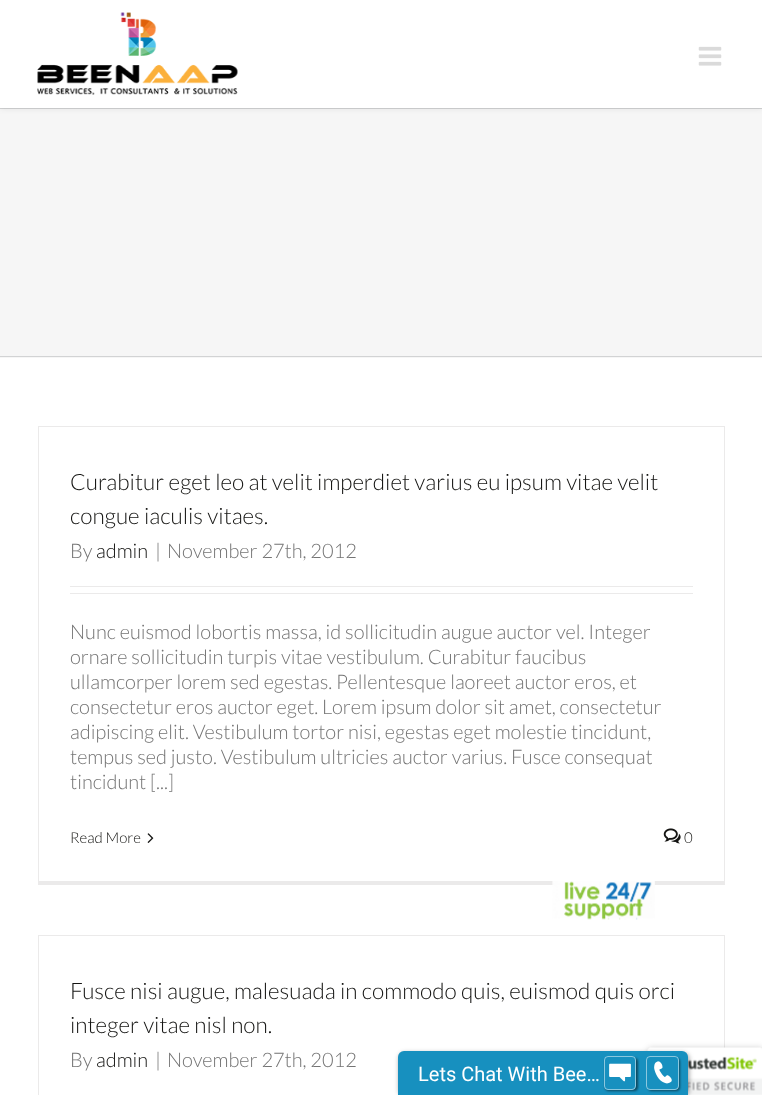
async function draw(canvas) {
  canvas.width = 762;
  canvas.height = 1095;
  const ctx = canvas.getContext('2d');
  ctx.miterLimit = 4;
  ctx.fontKerning = 'normal';
  function label(s, x, y, font, color) {
    ctx.font = font;
    ctx.fillStyle = color;
    ctx.fillText(s, x, y);
  }
  function rect(x, y, w, h, color) {
    ctx.fillStyle = color;
    ctx.fillRect(x, y, w, h);
  }
  async function image(src, x, y, w, h) {
    const img = new Image();
    img.src = src;
    await img.decode();
    ctx.drawImage(img, x, y, w, h);
  }
  let path;

  rect(0, 0, 762, 1095, '#fff');
  rect(0, 109, 762, 249, '#f6f6f6');
  rect(0, 108, 762, 1, '#d2d3d4');
  ctx.fillStyle = '#0000001a';
  ctx.filter = 'blur(3px)';
  ctx.beginPath();
  ctx.rect(0, 0, 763, 108);
  ctx.fill();
  ctx.filter = 'none';
  rect(0, 0, 762, 108, '#fff');
  await image('assets/img1.png', 37, 12, 201, 83);
  await image('assets/img2.png', 698, 46, 24, 20);
  rect(0, 356, 762, 1, '#d2d3d4');
  rect(38, 426, 687, 1, '#ebeaea');
  rect(724, 426, 1, 459, '#ebeaea');
  rect(38, 881, 687, 4, '#ebeaea');
  rect(38, 426, 1, 459, '#ebeaea');
  label('Curabitur eget leo at velit imperdiet varius eu ipsum vitae velit', 70, 490, '300 22.5px Lato', '#141412');
  label('congue iaculis vitaes.', 70, 524, '300 22.5px Lato', '#141412');
  label('By', 70, 558, '300 20px Lato', '#747474');
  label('admin', 96, 558, '300 20px Lato', '#141412');
  label('|', 155, 558, '300 20px Lato', '#747474');
  label('November 27th, 2012', 167, 558, '300 20px Lato', '#747474');
  rect(70, 586, 623, 1, '#ebeaea');
  rect(70, 593, 623, 1, '#ebeaea');
  label('Nunc euismod lobortis massa, id sollicitudin augue auctor vel. Integer', 70, 639, '300 20px Lato', '#747474');
  label('ornare sollicitudin turpis vitae vestibulum. Curabitur faucibus', 70, 664, '300 20px Lato', '#747474');
  label('ullamcorper lorem sed egestas. Pellentesque laoreet auctor eros, et', 70, 689, '300 20px Lato', '#747474');
  label('consectetur eros auctor eget. Lorem ipsum dolor sit amet, consectetur', 70, 714, '300 20px Lato', '#747474');
  label('adipiscing elit. Vestibulum tortor nisi, egestas eget molestie tincidunt,', 70, 739, '300 20px Lato', '#747474');
  label('tempus sed justo. Vestibulum ultricies auctor varius. Fusce consequat', 70, 764, '300 20px Lato', '#747474');
  label('tincidunt [...]', 70, 789, '300 20px Lato', '#747474');
  label('Read More', 70, 843, '300 15px Lato', '#141412');
  await image('assets/img3.png', 147, 833, 7, 10);
  await image('assets/img4.png', 663, 828, 18, 16);
  label('0', 684, 843, '300 15px Lato', '#141412');
  rect(38, 935, 687, 1, '#ebeaea');
  rect(724, 935, 1, 113, '#ebeaea');
  rect(38, 935, 1, 160, '#ebeaea');
  label('Fusce nisi augue, malesuada in commodo quis, euismod quis orci', 70, 999, '300 22.5px Lato', '#141412');
  label('integer vitae nisl non.', 70, 1033, '300 22.5px Lato', '#141412');
  label('By', 70, 1067, '300 20px Lato', '#747474');
  label('admin', 96, 1067, '300 20px Lato', '#141412');
  label('|', 155, 1067, '300 20px Lato', '#747474');
  label('November 27th, 2012', 167, 1067, '300 20px Lato', '#747474');
  ctx.fillStyle = '#00000033';
  ctx.filter = 'blur(3px)';
  ctx.beginPath();
  ctx.roundRect(648, 1048, 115, 47, 2.5);
  ctx.fill();
  ctx.filter = 'none';
  ctx.fillStyle = '#fff';
  path = new Path2D('M650.5 1048H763V1095H648V1050.5C648 1049 649 1048 650.5 1048Z');
  ctx.fill(path);
  await image('assets/img5.png', 647, 1047, 115, 48);
  ctx.fillStyle = '#00000066';
  ctx.filter = 'blur(2.5px)';
  ctx.beginPath();
  ctx.roundRect(399, 1053, 290, 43, 6);
  ctx.fill();
  ctx.filter = 'none';
  await image('assets/img6.png', 552, 881, 103, 39);
  ctx.fillStyle = '#1790bf';
  ctx.beginPath();
  ctx.roundRect(398, 1051, 290, 44, [6, 6, 0, 0]);
  ctx.fill();
  label('Lets Chat With Bee…', 418, 1081, '20px Roboto', '#fff');
  ctx.save();
  path = new Path2D('M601 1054H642V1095H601ZM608 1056H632C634 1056 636 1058 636 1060V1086C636 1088 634 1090 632 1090H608C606 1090 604 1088 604 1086V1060C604 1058 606 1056 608 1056Z');
  ctx.clip(path, 'evenodd');
  ctx.fillStyle = '#00000080';
  ctx.filter = 'blur(1px)';
  ctx.beginPath();
  ctx.roundRect(605, 1058, 33, 33, 4);
  ctx.fill();
  ctx.filter = 'none';
  ctx.restore();
  ctx.beginPath();
  ctx.roundRect(604.5, 1056.5, 31, 33, 3.5);
  ctx.strokeStyle = '#ffffff80';
  ctx.stroke();
  await image('assets/img7.png', 609, 1063, 22, 19);
  ctx.save();
  path = new Path2D('M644 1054H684V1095H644ZM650 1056H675C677 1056 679 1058 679 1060V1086C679 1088 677 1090 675 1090H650C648 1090 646 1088 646 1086V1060C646 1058 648 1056 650 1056Z');
  ctx.clip(path, 'evenodd');
  ctx.fillStyle = '#00000080';
  ctx.filter = 'blur(1px)';
  ctx.beginPath();
  ctx.roundRect(648, 1058, 32, 33, 4);
  ctx.fill();
  ctx.filter = 'none';
  ctx.restore();
  ctx.beginPath();
  ctx.roundRect(646.5, 1056.5, 32, 33, 3.5);
  ctx.stroke();
  await image('assets/img8.png', 654, 1061, 18, 23);
}

draw(document.querySelector('canvas'));
